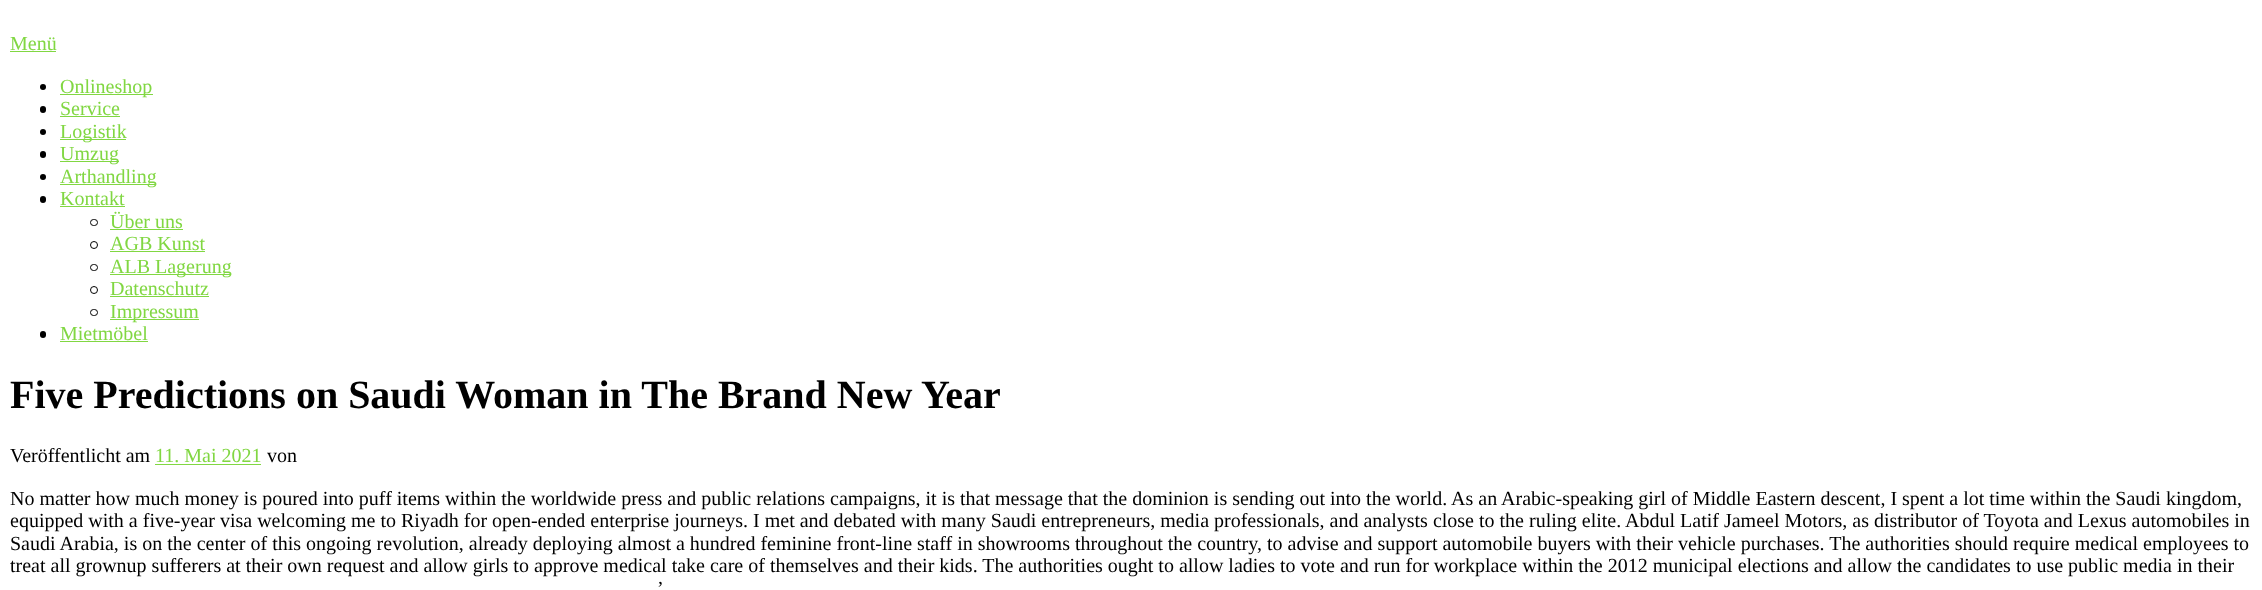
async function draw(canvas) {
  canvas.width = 2262;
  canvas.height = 590;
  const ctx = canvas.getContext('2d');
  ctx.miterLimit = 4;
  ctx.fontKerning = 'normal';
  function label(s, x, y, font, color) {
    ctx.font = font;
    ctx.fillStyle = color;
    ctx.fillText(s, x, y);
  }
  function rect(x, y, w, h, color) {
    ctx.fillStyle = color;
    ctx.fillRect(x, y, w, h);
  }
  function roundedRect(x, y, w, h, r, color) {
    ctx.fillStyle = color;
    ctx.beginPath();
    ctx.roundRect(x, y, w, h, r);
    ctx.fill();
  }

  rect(0, 0, 2262, 590, '#fff');
  label('Menü', 10, 50, '20px Liberation Serif', '#81d742');
  rect(10, 51, 46, 1, '#81d742');
  ctx.fillStyle = '#000';
  ctx.beginPath();
  ctx.arc(43, 87, 3, 0, 2 * Math.PI);
  ctx.fill();
  rect(60, 94, 93, 1, '#81d742');
  label('Onlineshop', 60, 93, '20px Liberation Serif', '#81d742');
  roundedRect(40, 106, 6, 7, 3, '#000');
  label('Service', 60, 115, '20px Liberation Serif', '#81d742');
  rect(60, 116, 60, 1, '#81d742');
  ctx.fillStyle = '#000';
  ctx.beginPath();
  ctx.arc(43, 132, 3, 0, 2 * Math.PI);
  ctx.fill();
  rect(60, 139, 66, 1, '#81d742');
  label('Logistik', 60, 138, '20px Liberation Serif', '#81d742');
  roundedRect(40, 151, 6, 7, 3, '#000');
  rect(60, 161, 59, 1, '#81d742');
  label('Umzug', 60, 160, '20px Liberation Serif', '#81d742');
  ctx.fillStyle = '#000';
  ctx.beginPath();
  ctx.arc(43, 177, 3, 0, 2 * Math.PI);
  ctx.fill();
  rect(60, 184, 96, 1, '#81d742');
  label('Arthandling', 60, 183, '20px Liberation Serif', '#81d742');
  roundedRect(40, 196, 6, 7, 3, '#000');
  label('Kontakt', 60, 205, '20px Liberation Serif', '#81d742');
  rect(60, 206, 65, 1, '#81d742');
  ctx.beginPath();
  ctx.roundRect(90.5, 219.5, 7, 6, 3);
  ctx.strokeStyle = '#000';
  ctx.stroke();
  label('Über uns', 110, 228, '20px Liberation Serif', '#81d742');
  rect(110, 229, 73, 1, '#81d742');
  ctx.beginPath();
  ctx.arc(94, 245, 3.5, 0, 2 * Math.PI);
  ctx.stroke();
  label('AGB Kunst', 110, 250, '20px Liberation Serif', '#81d742');
  rect(110, 251, 95, 1, '#81d742');
  ctx.beginPath();
  ctx.roundRect(90.5, 264.5, 7, 6, 3);
  ctx.stroke();
  rect(110, 274, 121, 1, '#81d742');
  label('ALB Lagerung', 110, 273, '20px Liberation Serif', '#81d742');
  ctx.beginPath();
  ctx.arc(94, 290, 3.5, 0, 2 * Math.PI);
  ctx.stroke();
  label('Datenschutz', 110, 295, '20px Liberation Serif', '#81d742');
  rect(110, 296, 99, 1, '#81d742');
  ctx.beginPath();
  ctx.roundRect(90.5, 309.5, 7, 6, 3);
  ctx.stroke();
  rect(110, 319, 89, 1, '#81d742');
  label('Impressum', 110, 318, '20px Liberation Serif', '#81d742');
  roundedRect(40, 331, 6, 7, 3, '#000');
  label('Mietmöbel', 60, 340, '20px Liberation Serif', '#81d742');
  rect(60, 341, 88, 1, '#81d742');
  label('Five Predictions on Saudi Woman in The Brand New Year', 10, 408, 'bold 40px Liberation Serif', '#000');
  label('Veröffentlicht am', 10, 462, '20px Liberation Serif', '#000');
  label('11. Mai 2021', 155, 462, '20px Liberation Serif', '#81d742');
  rect(155, 464, 106, 1, '#81d742');
  label('von', 267, 462, '20px Liberation Serif', '#000');
  label('No matter how much money is poured into puff items within the worldwide press and public relations campaigns, it is that message that the dominion is sending out into the world. As an Arabic-speaking girl of Middle Eastern descent, I spent a lot time within the Saudi kingdom,', 10, 505, '20px Liberation Serif', '#000');
  label('equipped with a five-year visa welcoming me to Riyadh for open-ended enterprise journeys. I met and debated with many Saudi entrepreneurs, media professionals, and analysts close to the ruling elite. Abdul Latif Jameel Motors, as distributor of Toyota and Lexus automobiles in', 10, 527, '20px Liberation Serif', '#000');
  label('Saudi Arabia, is on the center of this ongoing revolution, already deploying almost a hundred feminine front-line staff in showrooms throughout the country, to advise and support automobile buyers with their vehicle purchases. The authorities should require medical employees to', 10, 550, '20px Liberation Serif', '#000');
  label('treat all grownup sufferers at their own request and allow girls to approve medical take care of themselves and their kids. The authorities ought to allow ladies to vote and run for workplace within the 2012 municipal elections and allow the candidates to use public media in their', 10, 572, '20px Liberation Serif', '#000');
  label('’', 657, 595, '20px Liberation Serif', '#000');
}

draw(document.querySelector('canvas'));
